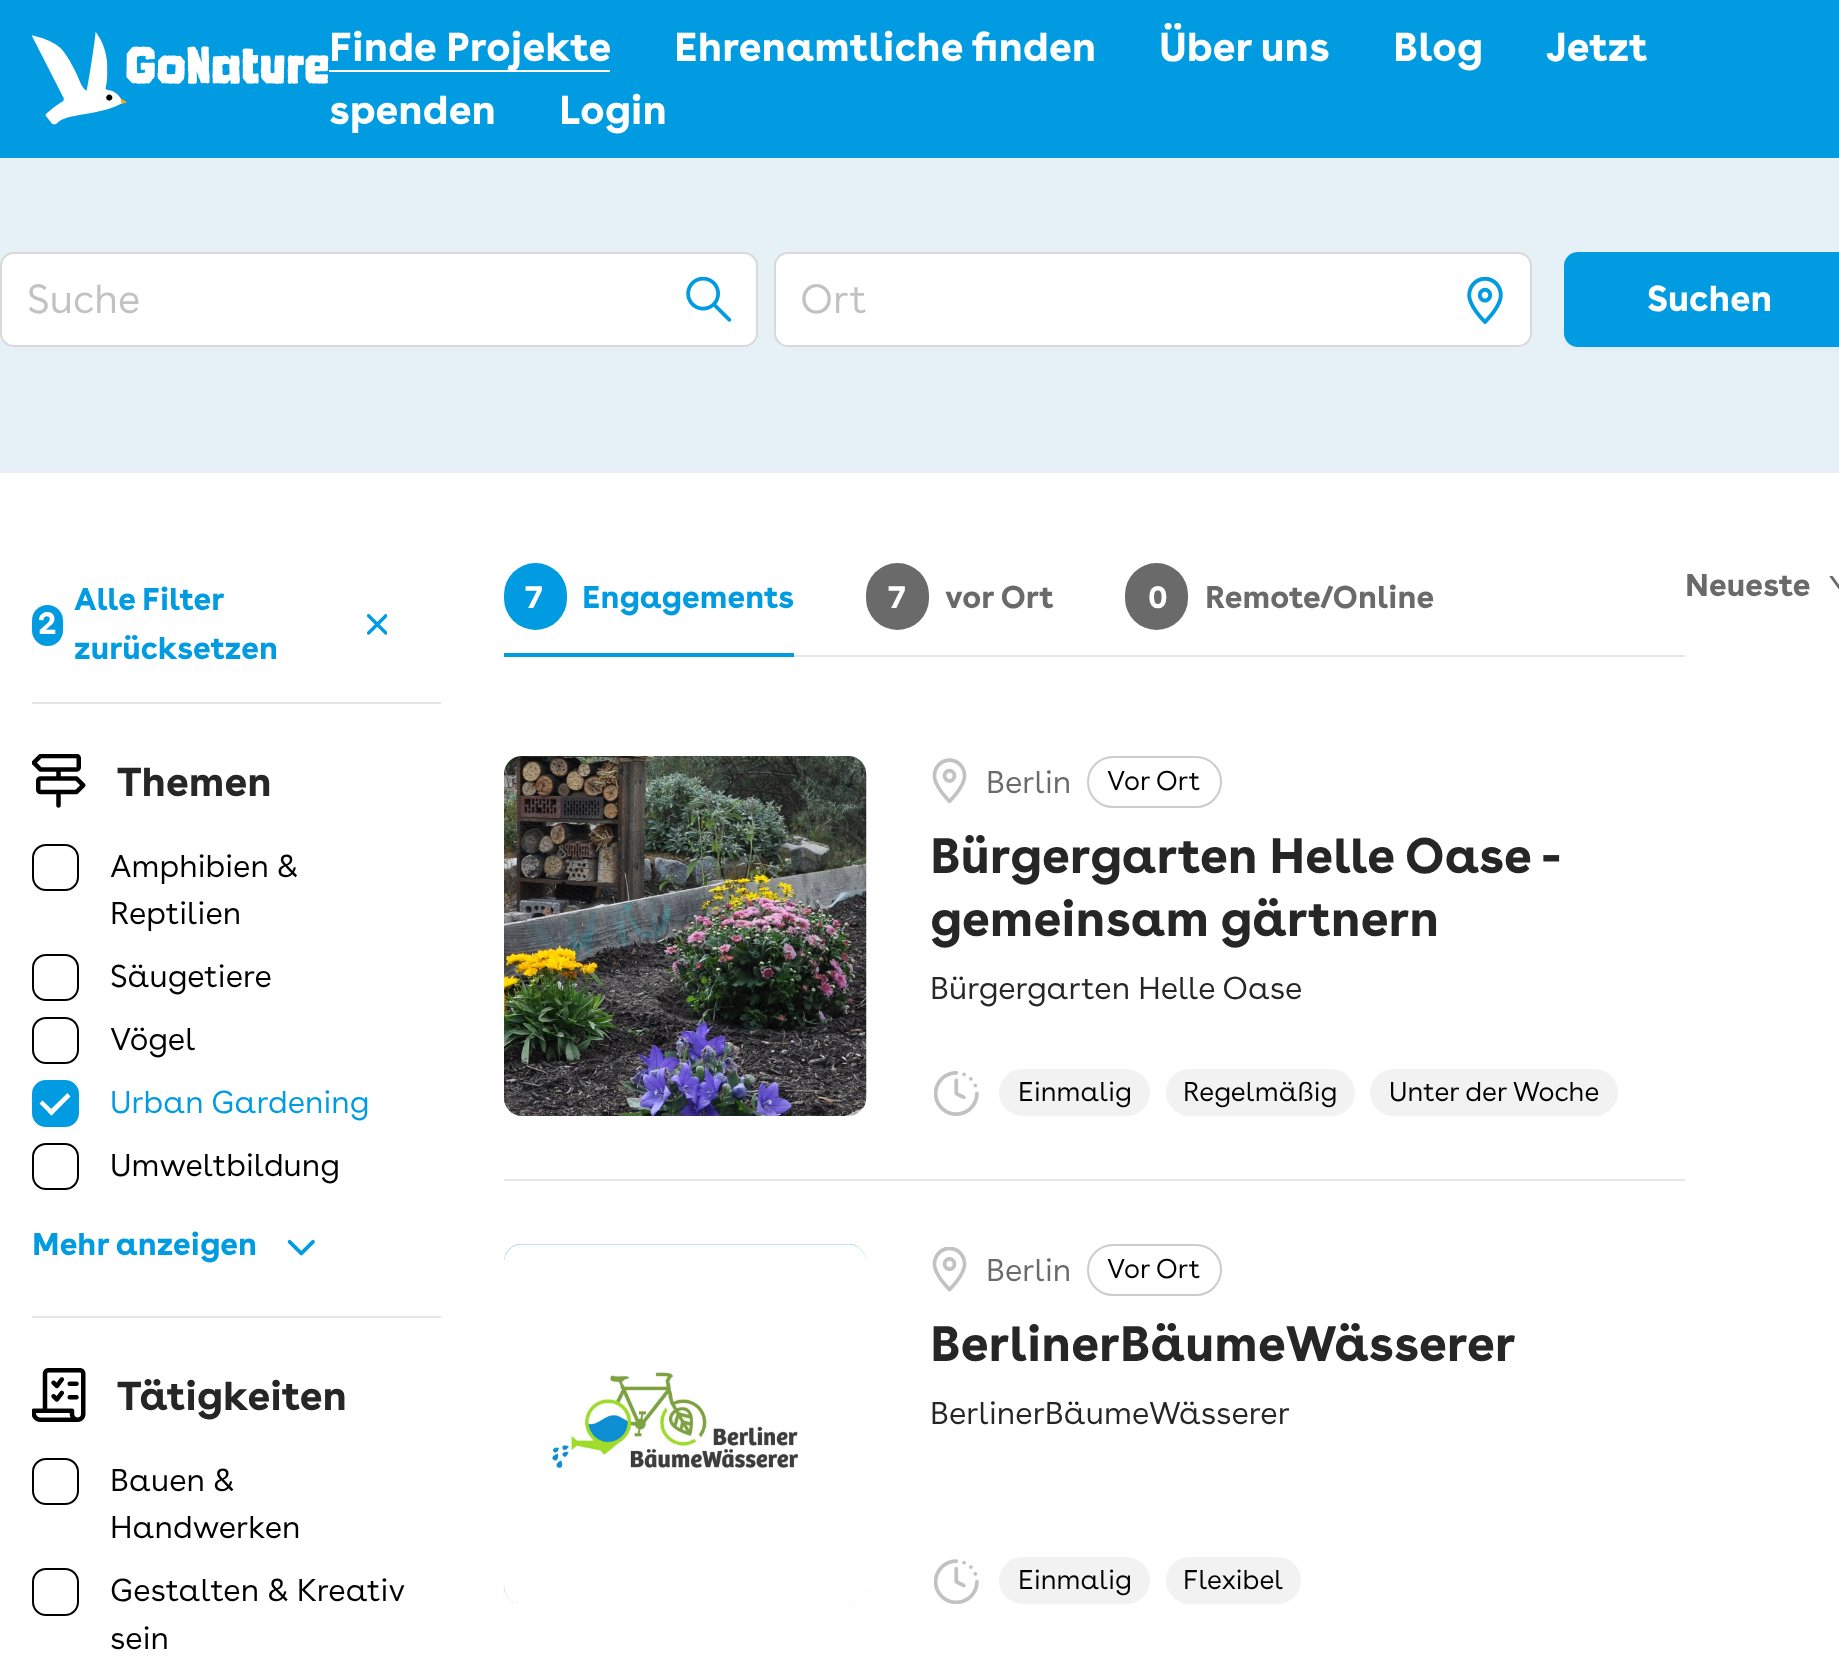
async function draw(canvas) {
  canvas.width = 1839;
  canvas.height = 1660;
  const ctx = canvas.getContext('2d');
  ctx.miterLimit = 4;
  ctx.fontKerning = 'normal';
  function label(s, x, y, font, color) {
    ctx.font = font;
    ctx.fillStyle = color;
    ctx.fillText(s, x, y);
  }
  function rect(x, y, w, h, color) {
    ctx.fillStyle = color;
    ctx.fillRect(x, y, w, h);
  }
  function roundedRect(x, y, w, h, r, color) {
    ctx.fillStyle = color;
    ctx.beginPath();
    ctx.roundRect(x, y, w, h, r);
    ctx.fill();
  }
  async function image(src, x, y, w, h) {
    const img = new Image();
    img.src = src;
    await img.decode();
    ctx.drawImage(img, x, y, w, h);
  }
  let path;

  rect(0, 0, 1839, 1660, '#fff');
  rect(0, 0, 1839, 158, '#009be1');
  await image('assets/img1.png', 32, 32, 297, 93);
  rect(329, 70, 281, 2, '#fff');
  label('Finde Projekte', 329, 61, 'bold 40.5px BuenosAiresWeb', '#fff');
  label('Ehrenamtliche finden', 674, 61, 'bold 40.5px BuenosAiresWeb', '#fff');
  label('Über uns', 1159, 61, 'bold 40.5px BuenosAiresWeb', '#fff');
  label('Blog', 1393, 61, 'bold 40.5px BuenosAiresWeb', '#fff');
  label('Jetzt', 1546, 61, 'bold 40.5px BuenosAiresWeb', '#fff');
  label('spenden', 329, 124, 'bold 40.5px BuenosAiresWeb', '#fff');
  label('Login', 559, 124, 'bold 40.5px BuenosAiresWeb', '#fff');
  rect(0, 158, 1839, 315, '#e6f1f7');
  ctx.fillStyle = '#fff';
  ctx.beginPath();
  ctx.roundRect(1, 253, 756, 93, 13);
  ctx.fill();
  ctx.strokeStyle = '#d9d9d9';
  ctx.lineWidth = 2;
  ctx.stroke();
  label('Suche', 27, 313, '40.5px BuenosAiresWeb', '#c2c2c2');
  await image('assets/img2.png', 686, 277, 45, 45);
  ctx.fillStyle = '#fff';
  ctx.beginPath();
  ctx.roundRect(775, 253, 756, 93, 13);
  ctx.fill();
  ctx.stroke();
  label('Ort', 800, 313, '40.5px BuenosAiresWeb', '#c2c2c2');
  await image('assets/img3.png', 1467, 277, 36, 47);
  ctx.fillStyle = '#e2edf3';
  path = new Path2D('M1564 336V337C1564 345 1570 351 1578 351H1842C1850 351 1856 345 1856 337V336C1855 342 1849 346 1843 346H1577C1571 346 1565 342 1564 336Z');
  ctx.fill(path);
  roundedRect(1564, 252, 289, 95, 14, '#009be1');
  label('Suchen', 1647, 311, 'bold 36px BuenosAiresWeb', '#fff');
  roundedRect(32, 605, 31, 41, 15.5, '#009be1');
  label('2', 38, 634, 'bold 31.5px BuenosAiresWeb', '#fff');
  ctx.wordSpacing = '-1px';
  label('Alle Filter', 74, 610, 'bold 31.5px BuenosAiresWeb', '#009be1');
  ctx.wordSpacing = '0px';
  label('zurücksetzen', 74, 659, 'bold 31.5px BuenosAiresWeb', '#009be1');
  await image('assets/img4.png', 367, 614, 20, 21);
  rect(32, 702, 409, 2, '#e6e6e6');
  rect(32, 1316, 409, 2, '#e6e6e6');
  await image('assets/img5.png', 32, 754, 54, 54);
  label('Themen', 117, 796, 'bold 40.5px BuenosAiresWeb', '#262626');
  ctx.beginPath();
  ctx.roundRect(33, 845, 45, 45, 13);
  ctx.strokeStyle = '#000';
  ctx.stroke();
  label('Amphibien &', 110, 877, '31.5px BuenosAiresWeb', '#000');
  label('Reptilien', 110, 924, '31.5px BuenosAiresWeb', '#000');
  ctx.beginPath();
  ctx.roundRect(33, 955, 45, 45, 13);
  ctx.stroke();
  label('Säugetiere', 110, 987, '31.5px BuenosAiresWeb', '#000');
  ctx.beginPath();
  ctx.roundRect(33, 1018, 45, 45, 13);
  ctx.stroke();
  label('Vögel', 110, 1050, '31.5px BuenosAiresWeb', '#000');
  ctx.fillStyle = '#009be1';
  ctx.beginPath();
  ctx.roundRect(33, 1081, 45, 45, 13);
  ctx.fill();
  ctx.strokeStyle = '#009be1';
  ctx.stroke();
  ctx.fillStyle = '#fff';
  path = new Path2D('M67.5 1093L70.5 1096.5L51.5 1115.5L48 1112Z');
  ctx.fill(path);
  path = new Path2D('M42.5 1100.5L54.5 1112L51.5 1115.5L39.5 1103.5Z');
  ctx.fill(path);
  label('Urban Gardening', 110, 1113, '31.5px BuenosAiresWeb', '#009be1');
  ctx.beginPath();
  ctx.roundRect(33, 1144, 45, 45, 13);
  ctx.strokeStyle = '#000';
  ctx.stroke();
  label('Umweltbildung', 110, 1176, '31.5px BuenosAiresWeb', '#000');
  label('Mehr anzeigen', 32, 1255, 'bold 31.5px BuenosAiresWeb', '#009be1');
  await image('assets/img6.png', 287, 1240, 28, 16);
  await image('assets/img7.png', 32, 1368, 54, 54);
  label('Tätigkeiten', 117, 1410, 'bold 40.5px BuenosAiresWeb', '#262626');
  ctx.beginPath();
  ctx.roundRect(33, 1459, 45, 45, 13);
  ctx.stroke();
  label('Bauen &', 110, 1491, '31.5px BuenosAiresWeb', '#000');
  label('Handwerken', 110, 1538, '31.5px BuenosAiresWeb', '#000');
  ctx.beginPath();
  ctx.roundRect(33, 1569, 45, 46, 13);
  ctx.stroke();
  label('Gestalten & Kreativ', 110, 1601, '31.5px BuenosAiresWeb', '#000');
  label('sein', 110, 1649, '31.5px BuenosAiresWeb', '#000');
  roundedRect(504, 563, 63, 67, 31.5, '#009be1');
  label('7', 525, 608, 'bold 31.5px BuenosAiresWeb', '#fff');
  label('Engagements', 582, 608, 'bold 31.5px BuenosAiresWeb', '#009be1');
  roundedRect(866, 563, 63, 67, 31.5, '#6a6a6a');
  label('7', 888, 608, 'bold 31.5px BuenosAiresWeb', '#fff');
  label('vor Ort', 945, 608, 'bold 31.5px BuenosAiresWeb', '#6a6a6a');
  roundedRect(1125, 563, 63, 67, 31.5, '#6a6a6a');
  label('0', 1148, 608, 'bold 31.5px BuenosAiresWeb', '#fff');
  label('Remote/Online', 1205, 608, 'bold 31.5px BuenosAiresWeb', '#6a6a6a');
  rect(504, 653, 290, 4, '#009be1');
  rect(794, 655, 891, 2, '#e6e6e6');
  rect(504, 1179, 1181, 2, '#e6e6e6');
  await image('assets/img8.png', 504, 756, 363, 360);
  await image('assets/img9.png', 932, 758, 35, 45);
  label('Berlin', 986, 793, '31.5px BuenosAiresWeb', '#6a6a6a');
  ctx.beginPath();
  ctx.roundRect(1088, 757, 133, 50, 25);
  ctx.strokeStyle = '#ccc';
  ctx.stroke();
  label('Vor Ort', 1107, 790, '27px BuenosAiresWeb', '#000');
  ctx.wordSpacing = '-0.5px';
  label('Bürgergarten Helle Oase -', 930, 873, 'bold 49.5px BuenosAiresWeb', '#262626');
  ctx.wordSpacing = '0px';
  label('gemeinsam gärtnern', 930, 936, 'bold 49.5px BuenosAiresWeb', '#262626');
  label('Bürgergarten Helle Oase', 930, 999, '31.5px BuenosAiresWeb', '#262626');
  await image('assets/img10.png', 934, 1071, 45, 45);
  roundedRect(999, 1069, 151, 47, 23.5, '#f2f2f2');
  label('Einmalig', 1018, 1101, '27px BuenosAiresWeb', '#000');
  roundedRect(1166, 1069, 189, 47, 23.5, '#f2f2f2');
  label('Regelmäßig', 1183, 1101, '27px BuenosAiresWeb', '#000');
  roundedRect(1370, 1069, 248, 47, 23.5, '#f2f2f2');
  label('Unter der Woche', 1389, 1101, '27px BuenosAiresWeb', '#000');
  roundedRect(504, 1244, 362, 360, 18, '#009be1');
  await image('assets/img11.png', 504, 1244, 362, 360);
  await image('assets/img12.png', 932, 1247, 35, 45);
  label('Berlin', 986, 1281, '31.5px BuenosAiresWeb', '#6a6a6a');
  ctx.beginPath();
  ctx.roundRect(1088, 1245, 133, 50, 25);
  ctx.stroke();
  label('Vor Ort', 1107, 1278, '27px BuenosAiresWeb', '#000');
  label('BerlinerBäumeWässerer', 930, 1361, 'bold 49.5px BuenosAiresWeb', '#262626');
  label('BerlinerBäumeWässerer', 930, 1424, '31.5px BuenosAiresWeb', '#262626');
  await image('assets/img13.png', 934, 1559, 45, 45);
  roundedRect(999, 1557, 151, 47, 23.5, '#f2f2f2');
  label('Einmalig', 1018, 1589, '27px BuenosAiresWeb', '#000');
  roundedRect(1166, 1557, 135, 47, 23.5, '#f2f2f2');
  label('Flexibel', 1183, 1589, '27px BuenosAiresWeb', '#000');
  label('Neueste', 1685, 596, 'bold 31.5px BuenosAiresWeb', '#6a6a6a');
  await image('assets/img14.png', 1829, 576, 10, 14);
}

draw(document.querySelector('canvas'));
